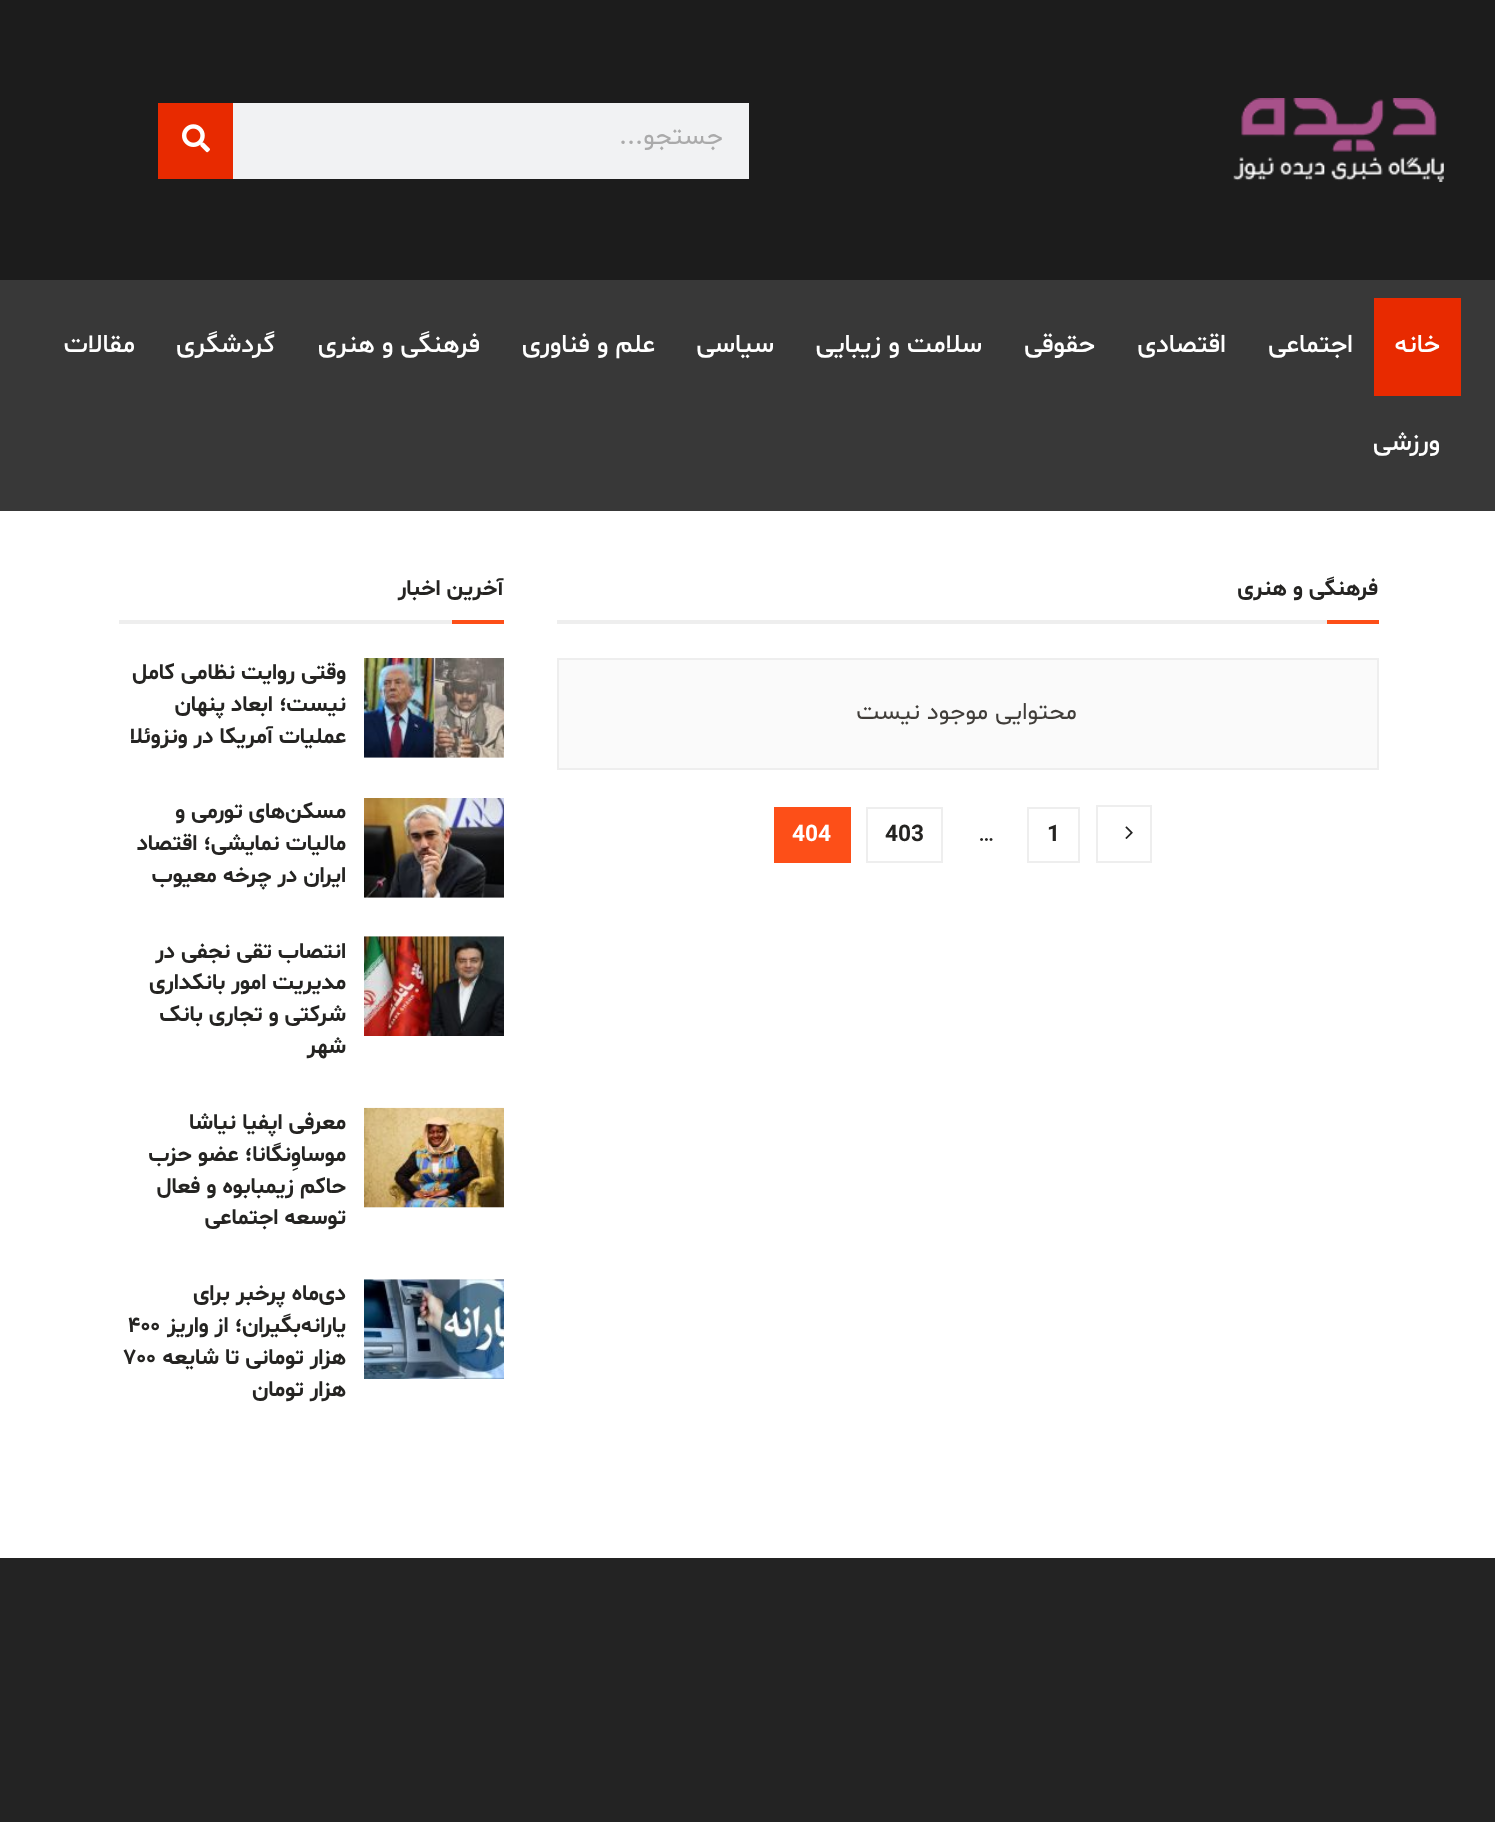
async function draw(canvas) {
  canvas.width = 1495;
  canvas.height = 1822;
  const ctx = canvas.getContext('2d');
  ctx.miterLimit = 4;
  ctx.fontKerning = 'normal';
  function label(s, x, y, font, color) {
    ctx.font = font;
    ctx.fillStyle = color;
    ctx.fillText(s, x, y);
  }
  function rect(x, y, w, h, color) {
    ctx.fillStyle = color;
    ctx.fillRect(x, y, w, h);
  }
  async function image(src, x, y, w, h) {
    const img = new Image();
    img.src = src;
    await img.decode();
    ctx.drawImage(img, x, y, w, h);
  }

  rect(0, 0, 1495, 1822, '#fff');
  rect(0, 0, 1495, 280, '#1c1c1c');
  await image('assets/img1.png', 1233, 98, 211, 84);
  rect(233, 103, 516, 76, '#f1f2f3');
  ctx.direction = 'rtl';
  label('جستجو...', 723, 144, '26.25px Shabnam', '#aaa');
  rect(158, 103, 75, 76, '#e82a00');
  await image('assets/img2.png', 182, 124, 28, 29);
  rect(0, 280, 1495, 231, '#383838');
  rect(1374, 298, 87, 98, '#e82a00');
  label('خانه', 1440, 352, '500 26.25px Shabnam', '#fff');
  label('اجتماعی', 1353, 352, '500 26.25px Shabnam', '#fff');
  label('اقتصادی', 1226, 352, '500 26.25px Shabnam', '#fff');
  label('حقوقی', 1095, 352, '500 26.25px Shabnam', '#fff');
  label('سلامت و زیبایی', 982, 352, '500 26.25px Shabnam', '#fff');
  label('سیاسی', 774, 352, '500 26.25px Shabnam', '#fff');
  label('علم و فناوری', 655, 352, '500 26.25px Shabnam', '#fff');
  label('فرهنگی و هنری', 480, 352, '500 26.25px Shabnam', '#fff');
  label('گردشگری', 275, 352, '500 26.25px Shabnam', '#fff');
  label('مقالات', 135, 352, '500 26.25px Shabnam', '#fff');
  label('ورزشی', 1440, 450, '500 26.25px Shabnam', '#fff');
  rect(557, 620, 770, 4, '#eee');
  label('فرهنگی و هنری', 1378, 595, 'bold 22.75px Shabnam', '#252422');
  rect(1327, 620, 52, 4, '#fd4f18');
  ctx.fillStyle = '#fafafa';
  ctx.beginPath();
  ctx.rect(558, 659, 820, 110);
  ctx.fill();
  ctx.strokeStyle = '#eee';
  ctx.lineWidth = 2;
  ctx.stroke();
  label('محتوایی موجود نیست', 1077, 719, '24.5px Shabnam', '#403d39');
  ctx.strokeRect(1097, 806, 54, 56);
  await image('assets/img3.png', 1125, 826, 8, 13);
  ctx.strokeRect(1028, 808, 51, 54);
  ctx.direction = 'ltr';
  label('1', 1047, 841, 'bold 22.75px Shabnam', '#252422');
  label('…', 978, 841, '22.75px Shabnam', '#252422');
  ctx.strokeRect(867, 808, 75, 54);
  label('403', 885, 841, 'bold 22.75px Shabnam', '#252422');
  rect(774, 807, 77, 56, '#fd4f18');
  label('404', 792, 841, 'bold 22.75px Shabnam', '#fff');
  rect(119, 620, 333, 4, '#eee');
  ctx.direction = 'rtl';
  label('آخرین اخبار', 503, 595, 'bold 22.75px Shabnam', '#252422');
  rect(452, 620, 52, 4, '#fd4f18');
  rect(364, 757, 140, 1, '#f7f7f7');
  await image('assets/img4.png', 364, 658, 140, 100);
  label('وقتی روایت نظامی کامل', 346, 679, 'bold 22.75px Shabnam', '#252422');
  label('نیست؛ ابعاد پنهان', 346, 711, 'bold 22.75px Shabnam', '#252422');
  label('عملیات آمریکا در ونزوئلا', 346, 743, 'bold 22.75px Shabnam', '#252422');
  rect(364, 897, 140, 1, '#f7f7f7');
  await image('assets/img5.png', 364, 798, 140, 100);
  label('مسکن‌های تورمی و', 346, 818, 'bold 22.75px Shabnam', '#252422');
  label('مالیات نمایشی؛ اقتصاد', 346, 850, 'bold 22.75px Shabnam', '#252422');
  label('ایران در چرخه معیوب', 346, 882, 'bold 22.75px Shabnam', '#252422');
  rect(364, 936, 140, 1, '#f7f7f7');
  await image('assets/img6.png', 364, 936, 140, 100);
  label('انتصاب تقی نجفی در', 346, 958, 'bold 22.75px Shabnam', '#252422');
  label('مدیریت امور بانکداری', 346, 989, 'bold 22.75px Shabnam', '#252422');
  label('شرکتی و تجاری بانک', 346, 1021, 'bold 22.75px Shabnam', '#252422');
  label('شهر', 346, 1053, 'bold 22.75px Shabnam', '#252422');
  rect(364, 1207, 140, 1, '#f7f7f7');
  await image('assets/img7.png', 364, 1107, 140, 101);
  label('معرفی اپفیا نیاشا', 346, 1129, 'bold 22.75px Shabnam', '#252422');
  label('موساوِنگانا؛ عضو حزب', 346, 1161, 'bold 22.75px Shabnam', '#252422');
  label('حاکم زیمبابوه و فعال', 346, 1193, 'bold 22.75px Shabnam', '#252422');
  label('توسعه اجتماعی', 346, 1224, 'bold 22.75px Shabnam', '#252422');
  rect(364, 1279, 140, 1, '#f7f7f7');
  await image('assets/img8.png', 364, 1279, 140, 100);
  label('دی‌ماه پرخبر برای', 346, 1300, 'bold 22.75px Shabnam', '#252422');
  label('یارانه‌بگیران؛ از واریز', 346, 1332, 'bold 22.75px Shabnam', '#252422');
  ctx.direction = 'ltr';
  label('۴۰۰', 128, 1332, 'bold 22.75px Shabnam', '#252422');
  ctx.direction = 'rtl';
  label('هزار تومانی تا شایعه', 346, 1364, 'bold 22.75px Shabnam', '#252422');
  ctx.direction = 'ltr';
  label('۷۰۰', 124, 1364, 'bold 22.75px Shabnam', '#252422');
  ctx.direction = 'rtl';
  label('هزار تومان', 346, 1396, 'bold 22.75px Shabnam', '#252422');
  rect(0, 1558, 1495, 264, '#232323');
}

draw(document.querySelector('canvas'));
